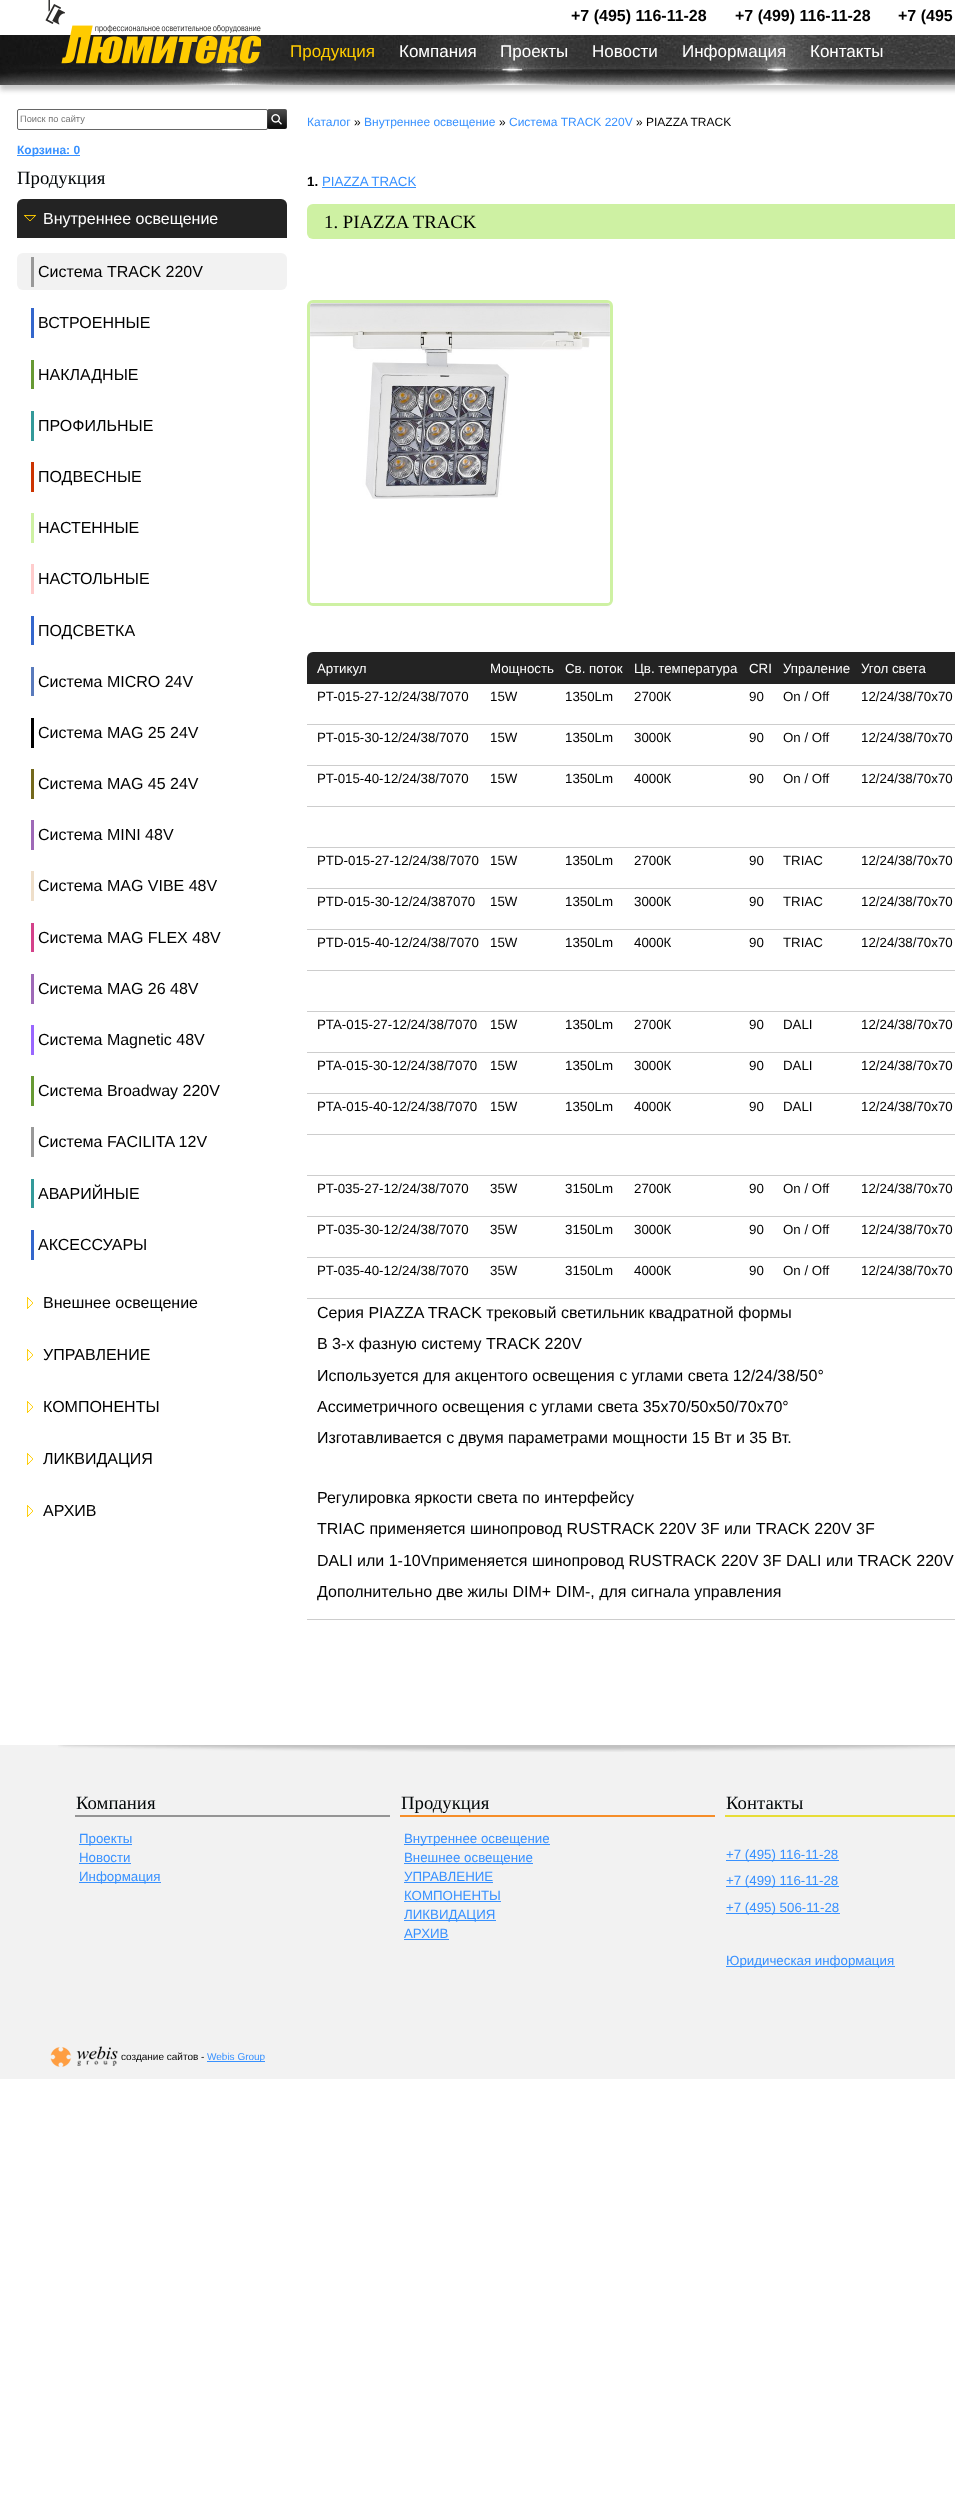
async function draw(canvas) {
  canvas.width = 955;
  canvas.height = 2501;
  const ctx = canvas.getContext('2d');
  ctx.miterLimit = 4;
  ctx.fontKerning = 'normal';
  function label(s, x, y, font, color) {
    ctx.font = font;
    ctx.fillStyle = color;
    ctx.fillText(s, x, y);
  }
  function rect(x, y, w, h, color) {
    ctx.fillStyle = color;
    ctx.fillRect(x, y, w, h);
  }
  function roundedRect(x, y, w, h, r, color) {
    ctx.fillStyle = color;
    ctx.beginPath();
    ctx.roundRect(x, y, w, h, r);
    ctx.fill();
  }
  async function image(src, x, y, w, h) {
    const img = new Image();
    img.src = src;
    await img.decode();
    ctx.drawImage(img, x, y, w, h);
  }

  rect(0, 0, 955, 2501, '#fff');
  ctx.save();
  ctx.beginPath();
  ctx.rect(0, 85, 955, 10);
  ctx.clip();
  ctx.fillStyle = '#c7c7c7';
  ctx.filter = 'blur(2.5px)';
  ctx.beginPath();
  ctx.rect(0, 40, 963, 50);
  ctx.fill();
  ctx.filter = 'none';
  ctx.restore();
  await image('assets/img2.png', 0, 35, 955, 50);
  await image('assets/img1.png', 45, 0, 216, 64);
  label('+7 (495) 116-11-28', 571, 21, 'bold 16px Liberation Sans', '#000');
  label('+7 (499) 116-11-28', 735, 21, 'bold 16px Liberation Sans', '#000');
  label('+7 (495', 898, 21, 'bold 16px Liberation Sans', '#000');
  label('Продукция', 290, 57, '17px Liberation Sans', '#fc0');
  label('Компания', 399, 57, '17px Liberation Sans', '#fff');
  label('Проекты', 500, 57, '17px Liberation Sans', '#fff');
  label('Новости', 592, 57, '17px Liberation Sans', '#fff');
  label('Информация', 682, 57, '17px Liberation Sans', '#fff');
  label('Контакты', 810, 57, '17px Liberation Sans', '#fff');
  ctx.beginPath();
  ctx.roundRect(17.5, 109.5, 250, 20, 1.5);
  ctx.strokeStyle = '#666';
  ctx.stroke();
  label('Поиск по сайту', 20, 122, '9.25px Liberation Sans', '#757575');
  await image('assets/img3.png', 267, 109, 20, 20);
  rect(17, 155, 63, 1, '#3891ff');
  label('Корзина: 0', 17, 154, 'bold 12px Liberation Sans', '#3891ff');
  label('Продукция', 17, 184, '18.75px Liberation Serif', '#000507');
  roundedRect(17, 199, 270, 1064, 6, '#232323');
  await image('assets/img4.png', 24, 215, 12, 6);
  label('Внутреннее освещение', 43, 224, '16px Liberation Sans', '#fff');
  rect(17, 238, 270, 1025, '#fff');
  roundedRect(17, 253, 270, 37, 6, '#f2f2f2');
  rect(31, 257, 3, 30, '#999');
  label('Система ТRACK 220V', 38, 277, '16px Liberation Sans', '#000');
  rect(31, 308, 3, 30, '#36c');
  label('ВСТРОЕННЫЕ', 38, 328, '16px Liberation Sans', '#000');
  rect(31, 360, 3, 29, '#693');
  label('НАКЛАДНЫЕ', 38, 380, '16px Liberation Sans', '#000');
  rect(31, 411, 3, 30, '#399');
  label('ПРОФИЛЬНЫЕ', 38, 431, '16px Liberation Sans', '#000');
  rect(31, 462, 3, 30, '#c30');
  label('ПОДВЕСНЫЕ', 38, 482, '16px Liberation Sans', '#000');
  rect(31, 513, 3, 30, '#cef1a3');
  label('НАСТЕННЫЕ', 38, 533, '16px Liberation Sans', '#000');
  rect(31, 564, 3, 30, '#fcc');
  label('НАСТОЛЬНЫЕ', 38, 584, '16px Liberation Sans', '#000');
  rect(31, 616, 3, 29, '#36c');
  label('ПОДСВЕТКА', 38, 636, '16px Liberation Sans', '#000');
  rect(31, 667, 3, 29, '#597abc');
  label('Система MICRO 24V', 38, 687, '16px Liberation Sans', '#000');
  rect(31, 718, 3, 30, '#000');
  label('Система MAG 25 24V', 38, 738, '16px Liberation Sans', '#000');
  rect(31, 769, 3, 30, '#73681c');
  label('Система MAG 45 24V', 38, 789, '16px Liberation Sans', '#000');
  rect(31, 820, 3, 30, '#9e69b7');
  label('Система MINI 48V', 38, 840, '16px Liberation Sans', '#000');
  rect(31, 871, 3, 30, '#eedec9');
  label('Система MAG VIBE 48V', 38, 891, '16px Liberation Sans', '#000');
  rect(31, 923, 3, 29, '#d4418a');
  label('Система MAG FLEX 48V', 38, 943, '16px Liberation Sans', '#000');
  rect(31, 974, 3, 30, '#9e69b7');
  label('Система MAG 26 48V', 38, 994, '16px Liberation Sans', '#000');
  rect(31, 1025, 3, 30, '#96f');
  label('Система Magnetic 48V', 38, 1045, '16px Liberation Sans', '#000');
  rect(31, 1076, 3, 30, '#693');
  label('Система Broadway 220V', 38, 1096, '16px Liberation Sans', '#000');
  rect(31, 1127, 3, 30, '#999');
  label('Система FACILITA 12V', 38, 1147, '16px Liberation Sans', '#000');
  rect(31, 1179, 3, 29, '#399');
  label('АВАРИЙНЫЕ', 38, 1199, '16px Liberation Sans', '#000');
  rect(31, 1230, 3, 30, '#36c');
  label('АКСЕССУАРЫ', 38, 1250, '16px Liberation Sans', '#000');
  await image('assets/img5.png', 27, 1297, 6, 12);
  label('Внешнее освещение', 43, 1308, '16px Liberation Sans', '#000');
  await image('assets/img5.png', 27, 1349, 6, 12);
  label('УПРАВЛЕНИЕ', 43, 1360, '16px Liberation Sans', '#000');
  await image('assets/img5.png', 27, 1401, 6, 12);
  label('КОМПОНЕНТЫ', 43, 1412, '16px Liberation Sans', '#000');
  await image('assets/img5.png', 27, 1453, 6, 12);
  label('ЛИКВИДАЦИЯ', 43, 1464, '16px Liberation Sans', '#000');
  await image('assets/img5.png', 27, 1505, 6, 12);
  label('АРХИВ', 43, 1516, '16px Liberation Sans', '#000');
  label('Каталог', 307, 126, '12px Liberation Sans', '#3891ff');
  label('»', 354, 126, '12px Liberation Sans', '#000');
  label('Внутреннее освещение', 364, 126, '12px Liberation Sans', '#3891ff');
  label('»', 499, 126, '12px Liberation Sans', '#000');
  label('Система ТRACK 220V', 509, 126, '12px Liberation Sans', '#3891ff');
  label('» PIAZZA TRACK', 636, 126, '12px Liberation Sans', '#000');
  label('1.', 307, 186, 'bold 13.3px Liberation Sans', '#000');
  label('PIAZZA TRACK', 322, 186, '13.3px Liberation Sans', '#3891ff');
  rect(322, 187, 94, 1, '#3891ff');
  roundedRect(307, 204, 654, 35, 6, '#cef1a3');
  label('1. PIAZZA TRACK', 324, 228, '18.75px Liberation Serif', '#000');
  ctx.beginPath();
  ctx.roundRect(308.5, 301.5, 303, 303, 4.5);
  ctx.strokeStyle = '#cef1a3';
  ctx.lineWidth = 3;
  ctx.stroke();
  await image('assets/img6.png', 310, 303, 300, 300);
  ctx.fillStyle = '#232323';
  ctx.beginPath();
  ctx.roundRect(307, 652, 173, 32, [6, 0, 0, 0]);
  ctx.fill();
  label('Артикул', 317, 673, '13.3px Liberation Sans', '#fff');
  rect(480, 652, 475, 32, '#232323');
  label('Мощность', 490, 673, '13.3px Liberation Sans', '#fff');
  label('Св. поток', 565, 673, '13.3px Liberation Sans', '#fff');
  label('Цв. температура', 634, 673, '13.3px Liberation Sans', '#fff');
  label('CRI', 749, 673, '13.3px Liberation Sans', '#fff');
  label('Упраление', 783, 673, '13.3px Liberation Sans', '#fff');
  label('Угол света', 861, 673, '13.3px Liberation Sans', '#fff');
  rect(307, 724, 648, 1, '#cdcdcd');
  label('PT-015-27-12/24/38/7070', 317, 701, '13.3px Liberation Sans', '#000');
  label('15W', 490, 701, '13.3px Liberation Sans', '#000');
  label('1350Lm', 565, 701, '13.3px Liberation Sans', '#000');
  label('2700К', 634, 701, '13.3px Liberation Sans', '#000');
  label('90', 749, 701, '13.3px Liberation Sans', '#000');
  label('On / Off', 783, 701, '13.3px Liberation Sans', '#000');
  label('12/24/38/70x70', 861, 701, '13.3px Liberation Sans', '#000');
  rect(307, 765, 648, 1, '#cdcdcd');
  label('PT-015-30-12/24/38/7070', 317, 742, '13.3px Liberation Sans', '#000');
  label('15W', 490, 742, '13.3px Liberation Sans', '#000');
  label('1350Lm', 565, 742, '13.3px Liberation Sans', '#000');
  label('3000К', 634, 742, '13.3px Liberation Sans', '#000');
  label('90', 749, 742, '13.3px Liberation Sans', '#000');
  label('On / Off', 783, 742, '13.3px Liberation Sans', '#000');
  label('12/24/38/70x70', 861, 742, '13.3px Liberation Sans', '#000');
  rect(307, 806, 648, 1, '#cdcdcd');
  label('PT-015-40-12/24/38/7070', 317, 783, '13.3px Liberation Sans', '#000');
  label('15W', 490, 783, '13.3px Liberation Sans', '#000');
  label('1350Lm', 565, 783, '13.3px Liberation Sans', '#000');
  label('4000К', 634, 783, '13.3px Liberation Sans', '#000');
  label('90', 749, 783, '13.3px Liberation Sans', '#000');
  label('On / Off', 783, 783, '13.3px Liberation Sans', '#000');
  label('12/24/38/70x70', 861, 783, '13.3px Liberation Sans', '#000');
  rect(307, 847, 648, 1, '#cdcdcd');
  rect(307, 888, 648, 1, '#cdcdcd');
  label('PTD-015-27-12/24/38/7070', 317, 865, '13.3px Liberation Sans', '#000');
  label('15W', 490, 865, '13.3px Liberation Sans', '#000');
  label('1350Lm', 565, 865, '13.3px Liberation Sans', '#000');
  label('2700К', 634, 865, '13.3px Liberation Sans', '#000');
  label('90', 749, 865, '13.3px Liberation Sans', '#000');
  label('TRIAC', 783, 865, '13.3px Liberation Sans', '#000');
  label('12/24/38/70x70', 861, 865, '13.3px Liberation Sans', '#000');
  rect(307, 929, 648, 1, '#cdcdcd');
  label('PTD-015-30-12/24/387070', 317, 906, '13.3px Liberation Sans', '#000');
  label('15W', 490, 906, '13.3px Liberation Sans', '#000');
  label('1350Lm', 565, 906, '13.3px Liberation Sans', '#000');
  label('3000К', 634, 906, '13.3px Liberation Sans', '#000');
  label('90', 749, 906, '13.3px Liberation Sans', '#000');
  label('TRIAC', 783, 906, '13.3px Liberation Sans', '#000');
  label('12/24/38/70x70', 861, 906, '13.3px Liberation Sans', '#000');
  rect(307, 970, 648, 1, '#cdcdcd');
  label('PTD-015-40-12/24/38/7070', 317, 947, '13.3px Liberation Sans', '#000');
  label('15W', 490, 947, '13.3px Liberation Sans', '#000');
  label('1350Lm', 565, 947, '13.3px Liberation Sans', '#000');
  label('4000К', 634, 947, '13.3px Liberation Sans', '#000');
  label('90', 749, 947, '13.3px Liberation Sans', '#000');
  label('TRIAC', 783, 947, '13.3px Liberation Sans', '#000');
  label('12/24/38/70x70', 861, 947, '13.3px Liberation Sans', '#000');
  rect(307, 1011, 648, 1, '#cdcdcd');
  rect(307, 1052, 648, 1, '#cdcdcd');
  label('PTA-015-27-12/24/38/7070', 317, 1029, '13.3px Liberation Sans', '#000');
  label('15W', 490, 1029, '13.3px Liberation Sans', '#000');
  label('1350Lm', 565, 1029, '13.3px Liberation Sans', '#000');
  label('2700К', 634, 1029, '13.3px Liberation Sans', '#000');
  label('90', 749, 1029, '13.3px Liberation Sans', '#000');
  label('DALI', 783, 1029, '13.3px Liberation Sans', '#000');
  label('12/24/38/70x70', 861, 1029, '13.3px Liberation Sans', '#000');
  rect(307, 1093, 648, 1, '#cdcdcd');
  label('PTA-015-30-12/24/38/7070', 317, 1070, '13.3px Liberation Sans', '#000');
  label('15W', 490, 1070, '13.3px Liberation Sans', '#000');
  label('1350Lm', 565, 1070, '13.3px Liberation Sans', '#000');
  label('3000К', 634, 1070, '13.3px Liberation Sans', '#000');
  label('90', 749, 1070, '13.3px Liberation Sans', '#000');
  label('DALI', 783, 1070, '13.3px Liberation Sans', '#000');
  label('12/24/38/70x70', 861, 1070, '13.3px Liberation Sans', '#000');
  rect(307, 1134, 648, 1, '#cdcdcd');
  label('PTA-015-40-12/24/38/7070', 317, 1111, '13.3px Liberation Sans', '#000');
  label('15W', 490, 1111, '13.3px Liberation Sans', '#000');
  label('1350Lm', 565, 1111, '13.3px Liberation Sans', '#000');
  label('4000К', 634, 1111, '13.3px Liberation Sans', '#000');
  label('90', 749, 1111, '13.3px Liberation Sans', '#000');
  label('DALI', 783, 1111, '13.3px Liberation Sans', '#000');
  label('12/24/38/70x70', 861, 1111, '13.3px Liberation Sans', '#000');
  rect(307, 1175, 648, 1, '#cdcdcd');
  rect(307, 1216, 648, 1, '#cdcdcd');
  label('PT-035-27-12/24/38/7070', 317, 1193, '13.3px Liberation Sans', '#000');
  label('35W', 490, 1193, '13.3px Liberation Sans', '#000');
  label('3150Lm', 565, 1193, '13.3px Liberation Sans', '#000');
  label('2700К', 634, 1193, '13.3px Liberation Sans', '#000');
  label('90', 749, 1193, '13.3px Liberation Sans', '#000');
  label('On / Off', 783, 1193, '13.3px Liberation Sans', '#000');
  label('12/24/38/70x70', 861, 1193, '13.3px Liberation Sans', '#000');
  rect(307, 1257, 648, 1, '#cdcdcd');
  label('PT-035-30-12/24/38/7070', 317, 1234, '13.3px Liberation Sans', '#000');
  label('35W', 490, 1234, '13.3px Liberation Sans', '#000');
  label('3150Lm', 565, 1234, '13.3px Liberation Sans', '#000');
  label('3000К', 634, 1234, '13.3px Liberation Sans', '#000');
  label('90', 749, 1234, '13.3px Liberation Sans', '#000');
  label('On / Off', 783, 1234, '13.3px Liberation Sans', '#000');
  label('12/24/38/70x70', 861, 1234, '13.3px Liberation Sans', '#000');
  rect(307, 1298, 648, 1, '#cdcdcd');
  label('PT-035-40-12/24/38/7070', 317, 1275, '13.3px Liberation Sans', '#000');
  label('35W', 490, 1275, '13.3px Liberation Sans', '#000');
  label('3150Lm', 565, 1275, '13.3px Liberation Sans', '#000');
  label('4000К', 634, 1275, '13.3px Liberation Sans', '#000');
  label('90', 749, 1275, '13.3px Liberation Sans', '#000');
  label('On / Off', 783, 1275, '13.3px Liberation Sans', '#000');
  label('12/24/38/70x70', 861, 1275, '13.3px Liberation Sans', '#000');
  rect(307, 1619, 648, 1, '#cdcdcd');
  label('Серия PIAZZA TRACK трековый светильник квадратной формы', 317, 1318, '16px Liberation Sans', '#000');
  label('В 3-х фазную систему TRACK 220V', 317, 1349, '16px Liberation Sans', '#000');
  label('Используется для акцентого освещения с углами света 12/24/38/50°', 317, 1381, '16px Liberation Sans', '#000');
  label('Ассиметричного освещения с углами света 35x70/50x50/70x70°', 317, 1412, '16px Liberation Sans', '#000');
  label('Изготавливается с двумя параметрами мощности 15 Вт и 35 Вт.', 317, 1443, '16px Liberation Sans', '#000');
  label('Регулировка яркости света по интерфейсу', 317, 1503, '16px Liberation Sans', '#000');
  label('TRIAC применяется шинопровод RUSTRACK 220V 3F или TRACK 220V 3F', 317, 1534, '16px Liberation Sans', '#000');
  label('DALI или 1-10Vприменяется шинопровод RUSTRACK 220V 3F DALI или TRACK 220V', 317, 1566, '16px Liberation Sans', '#000');
  label('Дополнительно две жилы DIM+ DIM-, для сигнала управления', 317, 1597, '16px Liberation Sans', '#000');
  rect(0, 1745, 955, 334, '#f2f2f2');
  await image('assets/img7.png', 58, 1745, 897, 7);
  rect(75, 1815, 315, 2, '#959595');
  label('Компания', 76, 1809, '18.75px Liberation Serif', '#000507');
  rect(400, 1815, 315, 2, '#f68e29');
  label('Продукция', 401, 1809, '18.75px Liberation Serif', '#000507');
  rect(725, 1815, 230, 2, '#e8dd37');
  label('Контакты', 726, 1809, '18.75px Liberation Serif', '#000507');
  rect(79, 1844, 53, 1, '#3891ff');
  label('Проекты', 79, 1843, '13.3px Liberation Sans', '#3891ff');
  label('Новости', 79, 1862, '13.3px Liberation Sans', '#3891ff');
  rect(79, 1863, 52, 1, '#3891ff');
  rect(79, 1882, 82, 1, '#3891ff');
  label('Информация', 79, 1881, '13.3px Liberation Sans', '#3891ff');
  rect(404, 1844, 146, 1, '#3891ff');
  label('Внутреннее освещение', 404, 1843, '13.3px Liberation Sans', '#3891ff');
  rect(404, 1863, 129, 1, '#3891ff');
  label('Внешнее освещение', 404, 1862, '13.3px Liberation Sans', '#3891ff');
  label('УПРАВЛЕНИЕ', 404, 1881, '13.3px Liberation Sans', '#3891ff');
  rect(404, 1882, 89, 1, '#3891ff');
  label('КОМПОНЕНТЫ', 404, 1900, '13.3px Liberation Sans', '#3891ff');
  rect(404, 1901, 97, 1, '#3891ff');
  rect(404, 1920, 92, 1, '#3891ff');
  label('ЛИКВИДАЦИЯ', 404, 1919, '13.3px Liberation Sans', '#3891ff');
  label('АРХИВ', 404, 1938, '13.3px Liberation Sans', '#3891ff');
  rect(404, 1939, 45, 1, '#3891ff');
  rect(726, 1860, 113, 1, '#3891ff');
  label('+7 (495) 116-11-28', 726, 1859, '13.3px Liberation Sans', '#3891ff');
  rect(726, 1886, 113, 1, '#3891ff');
  label('+7 (499) 116-11-28', 726, 1885, '13.3px Liberation Sans', '#3891ff');
  rect(726, 1913, 114, 1, '#3891ff');
  label('+7 (495) 506-11-28', 726, 1912, '13.3px Liberation Sans', '#3891ff');
  rect(726, 1966, 169, 1, '#3891ff');
  label('Юридическая информация', 726, 1965, '13.3px Liberation Sans', '#3891ff');
  await image('assets/img8.png', 50, 2046, 68, 21);
  label('создание сайтов -', 121, 2060, '10px Liberation Sans', '#000');
  rect(207, 2061, 58, 1, '#3891ff');
  label('Webis Group', 207, 2060, '10px Liberation Sans', '#3891ff');
}

draw(document.querySelector('canvas'));
